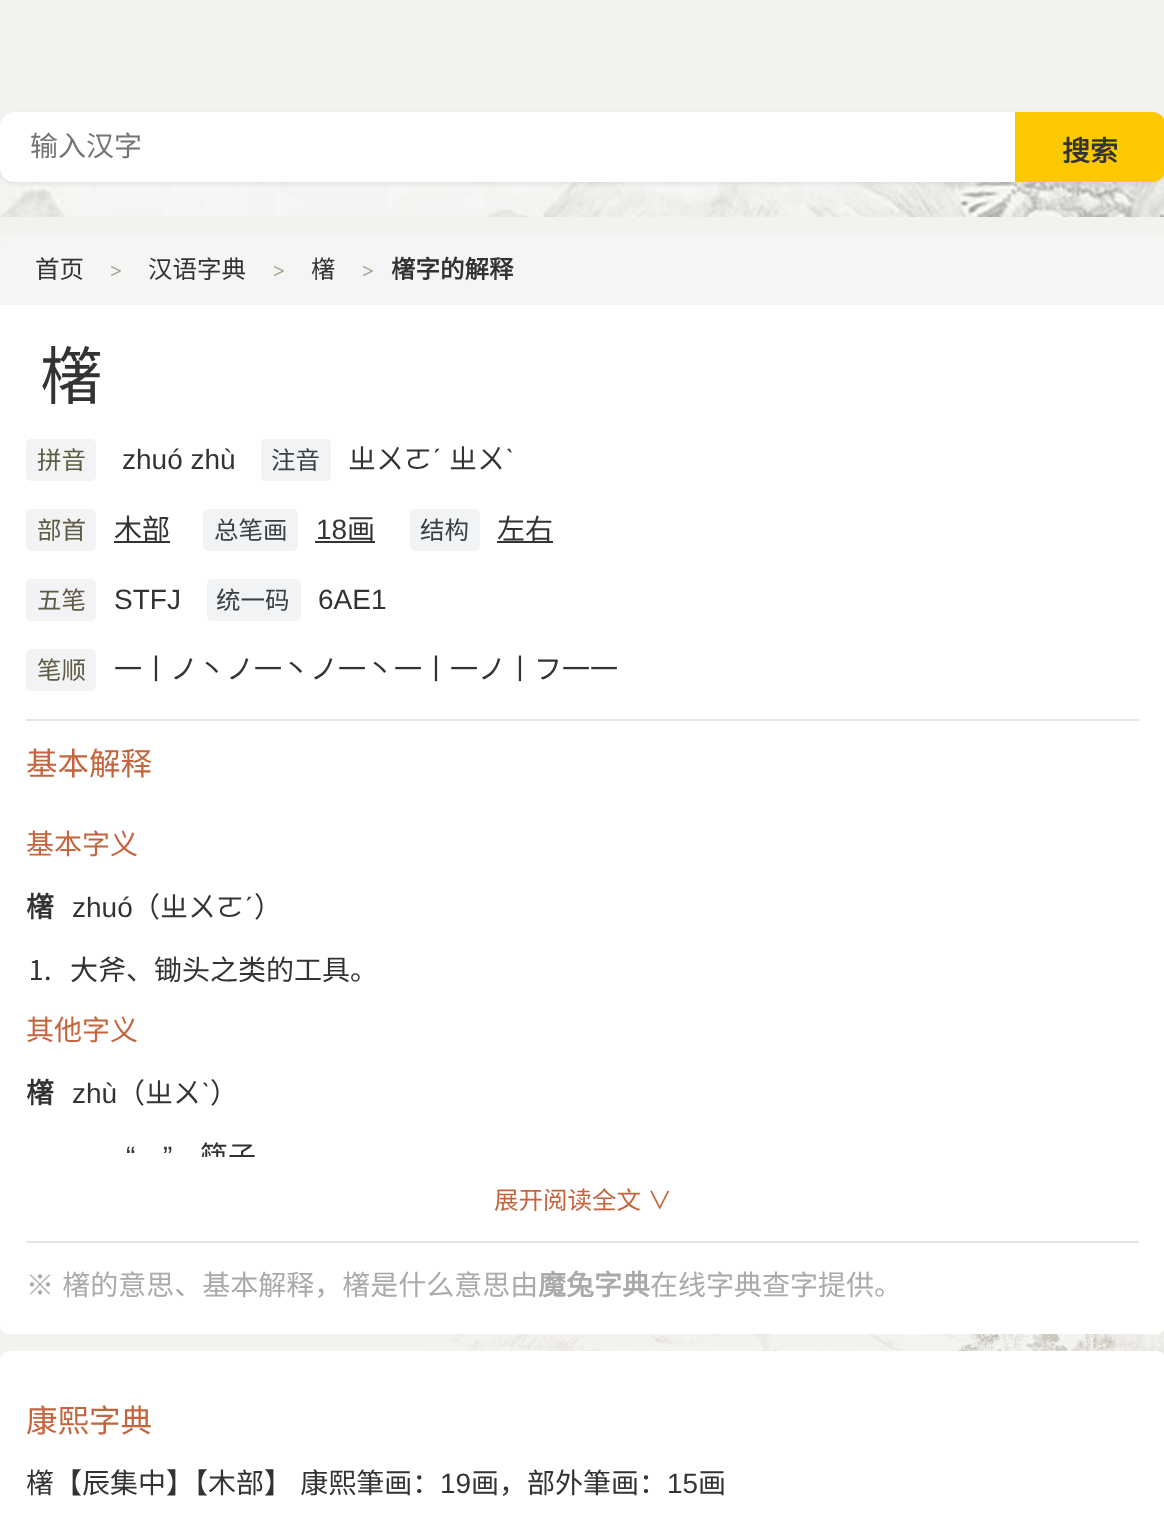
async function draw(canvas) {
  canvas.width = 1164;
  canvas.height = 1518;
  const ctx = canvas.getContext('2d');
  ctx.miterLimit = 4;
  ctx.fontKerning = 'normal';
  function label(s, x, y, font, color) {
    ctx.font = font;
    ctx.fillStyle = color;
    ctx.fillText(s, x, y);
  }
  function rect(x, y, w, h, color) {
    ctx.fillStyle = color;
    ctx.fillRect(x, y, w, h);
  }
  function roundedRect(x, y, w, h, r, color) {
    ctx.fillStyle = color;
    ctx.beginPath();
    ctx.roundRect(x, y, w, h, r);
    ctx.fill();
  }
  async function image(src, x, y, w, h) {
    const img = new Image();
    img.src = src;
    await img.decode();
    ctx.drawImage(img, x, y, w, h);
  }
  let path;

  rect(0, 0, 1164, 1518, '#f2f3ee');
  await image('assets/img1.png', 0, 1325, 1164, 35);
  await image('assets/img2.png', 1, 173, 1163, 44);
  ctx.fillStyle = '#4145491a';
  ctx.filter = 'blur(2.5px)';
  ctx.beginPath();
  ctx.roundRect(0, 114, 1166, 70, 14);
  ctx.fill();
  ctx.filter = 'none';
  ctx.fillStyle = '#fff';
  ctx.beginPath();
  ctx.roundRect(0, 112, 1015, 70, [14, 0, 0, 14]);
  ctx.fill();
  label('输入汉字', 30, 156, '28px Noto Sans CJK SC', '#757575');
  ctx.fillStyle = '#fcc800';
  path = new Path2D('M1015 112H1152C1159.5 112 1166 118.5 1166 126V168C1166 175.5 1159.5 182 1152 182H1015Z');
  ctx.fill(path);
  label('搜索', 1062, 161, 'bold 28px Noto Sans CJK SC', '#333');
  ctx.fillStyle = '#f5f5f5';
  path = new Path2D('M9 235H1157C1162 235 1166 239 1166 244V305H0V244C0 239 4 235 9 235Z');
  ctx.fill(path);
  label('首页', 35, 278, '24.5px Noto Sans CJK SC', '#333');
  label('>', 110, 278, 'bold 21px Liberation Serif', '#a4a288');
  label('汉语字典', 148, 278, '24.5px Noto Sans CJK SC', '#333');
  label('>', 273, 278, 'bold 21px Liberation Serif', '#a4a288');
  label('櫡', 311, 278, '24.5px Noto Sans CJK SC', '#333');
  label('>', 362, 278, 'bold 21px Liberation Serif', '#a4a288');
  label('櫡字的解释', 391, 278, 'bold 24.5px Noto Sans CJK SC', '#333');
  ctx.fillStyle = '#fff';
  path = new Path2D('M0 305H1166V1325C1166 1330 1162 1334 1157 1334H9C4 1334 0 1330 0 1325Z');
  ctx.fill(path);
  ctx.letterSpacing = '14px';
  label('櫡', 40, 399, '63px Noto Sans CJK SC', '#333');
  roundedRect(26, 439, 70, 42, 5, '#f1f3f4');
  ctx.letterSpacing = '0px';
  label('拼音', 37, 469, '24.5px Noto Sans CJK SC', '#605b45');
  label('zhuó zhù', 122, 469, '28px Liberation Sans', '#333');
  roundedRect(261, 439, 70, 42, 5, '#f1f3f4');
  label('注音', 271, 469, '24.5px Noto Sans CJK SC', '#3c4043');
  label('ㄓㄨㄛ', 348, 469, '28px Noto Sans CJK SC', '#333');
  label('ˊ', 432, 469, '28px Liberation Sans', '#333');
  label('ㄓㄨ', 449, 469, '28px Noto Sans CJK SC', '#333');
  label('ˋ', 505, 469, '28px Liberation Sans', '#333');
  roundedRect(26, 509, 70, 42, 5, '#f1f3f4');
  label('部首', 37, 539, '24.5px Noto Sans CJK SC', '#605b45');
  rect(114, 541, 56, 2, '#333');
  label('木部', 114, 539, '28px Noto Sans CJK SC', '#333');
  roundedRect(203, 509, 95, 42, 5, '#f1f3f4');
  label('总笔画', 214, 539, '24.5px Noto Sans CJK SC', '#3c4043');
  label('18', 316, 539, '28px Liberation Sans', '#333');
  rect(315, 541, 60, 2, '#333');
  label('画', 347, 539, '28px Noto Sans CJK SC', '#333');
  roundedRect(410, 509, 70, 42, 5, '#f1f3f4');
  label('结构', 420, 539, '24.5px Noto Sans CJK SC', '#3c4043');
  rect(497, 541, 56, 2, '#333');
  label('左右', 497, 539, '28px Noto Sans CJK SC', '#333');
  roundedRect(26, 579, 70, 42, 5, '#f1f3f4');
  label('五笔', 37, 609, '24.5px Noto Sans CJK SC', '#605b45');
  label('STFJ', 114, 609, '28px Liberation Sans', '#333');
  roundedRect(207, 579, 94, 42, 5, '#f1f3f4');
  label('统一码', 216, 609, '24.5px Noto Sans CJK SC', '#3c4043');
  label('6AE1', 318, 609, '28px Liberation Sans', '#333');
  roundedRect(26, 649, 70, 42, 5, '#f1f3f4');
  label('笔顺', 37, 679, '24.5px Noto Sans CJK SC', '#605b45');
  label('一丨ノ丶ノ一丶ノ一丶一丨一ノ丨フ一一', 114, 679, '28px Noto Sans CJK SC', '#333');
  rect(26, 719, 1113, 2, '#e5e5e5');
  label('基本解释', 26, 775, '31.5px Noto Sans CJK SC', '#c5653e');
  label('基本字义', 26, 854, '28px Noto Sans CJK SC', '#c5653e');
  label('櫡', 26, 917, 'bold 28px Noto Sans CJK SC', '#333');
  label('zhuó', 72, 917, '28px Liberation Sans', '#333');
  label('（ㄓㄨㄛ', 132, 917, '28px Noto Sans CJK SC', '#333');
  label('ˊ', 244, 917, '28px Liberation Sans', '#333');
  label('）', 254, 917, '28px Noto Sans CJK SC', '#333');
  label('⒈', 26, 980, '28px Noto Sans CJK SC', '#333');
  label('大斧、锄头之类的工具。', 70, 980, '28px Noto Sans CJK SC', '#333');
  label('其他字义', 26, 1040, '28px Noto Sans CJK SC', '#c5653e');
  label('櫡', 26, 1103, 'bold 28px Noto Sans CJK SC', '#333');
  label('zhù', 72, 1103, '28px Liberation Sans', '#333');
  label('（ㄓㄨ', 117, 1103, '28px Noto Sans CJK SC', '#333');
  label('ˋ', 201, 1103, '28px Liberation Sans', '#333');
  label('）', 210, 1103, '28px Noto Sans CJK SC', '#333');
  label('“', 126, 1166, '28px Liberation Sans', '#333');
  label('”', 163, 1166, '28px Liberation Sans', '#333');
  ctx.save();
  ctx.beginPath();
  ctx.rect(26, 807, 1113, 350);
  ctx.clip();
  label('筷子', 200, 1166, '28px Noto Sans CJK SC', '#333');
  ctx.restore();
  ctx.wordSpacing = '1px';
  label('展开阅读全文 ∨', 494, 1209, '24.5px Noto Sans CJK SC', '#c5653e');
  rect(26, 1241, 1113, 2, '#e5e5e5');
  ctx.wordSpacing = '2px';
  label('※ 櫡的意思、基本解释，櫡是什么意思由', 26, 1295, '28px Noto Sans CJK SC', '#aaa');
  ctx.wordSpacing = '0px';
  label('魔兔字典', 538, 1295, 'bold 28px Noto Sans CJK SC', '#aaa');
  label('在线字典查字提供。', 650, 1295, '28px Noto Sans CJK SC', '#aaa');
  roundedRect(0, 1351, 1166, 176, 9, '#fff');
  label('康熙字典', 26, 1432, '31.5px Noto Sans CJK SC', '#c5653e');
  ctx.wordSpacing = '2px';
  label('櫡【辰集中】【木部】 康熙筆画：', 26, 1493, '28px Noto Sans CJK SC', '#333');
  ctx.wordSpacing = '0px';
  label('19', 440, 1493, '28px Liberation Sans', '#333');
  label('画，部外筆画：', 471, 1493, '28px Noto Sans CJK SC', '#333');
  label('15', 667, 1493, '28px Liberation Sans', '#333');
  label('画', 698, 1493, '28px Noto Sans CJK SC', '#333');
}

draw(document.querySelector('canvas'));
